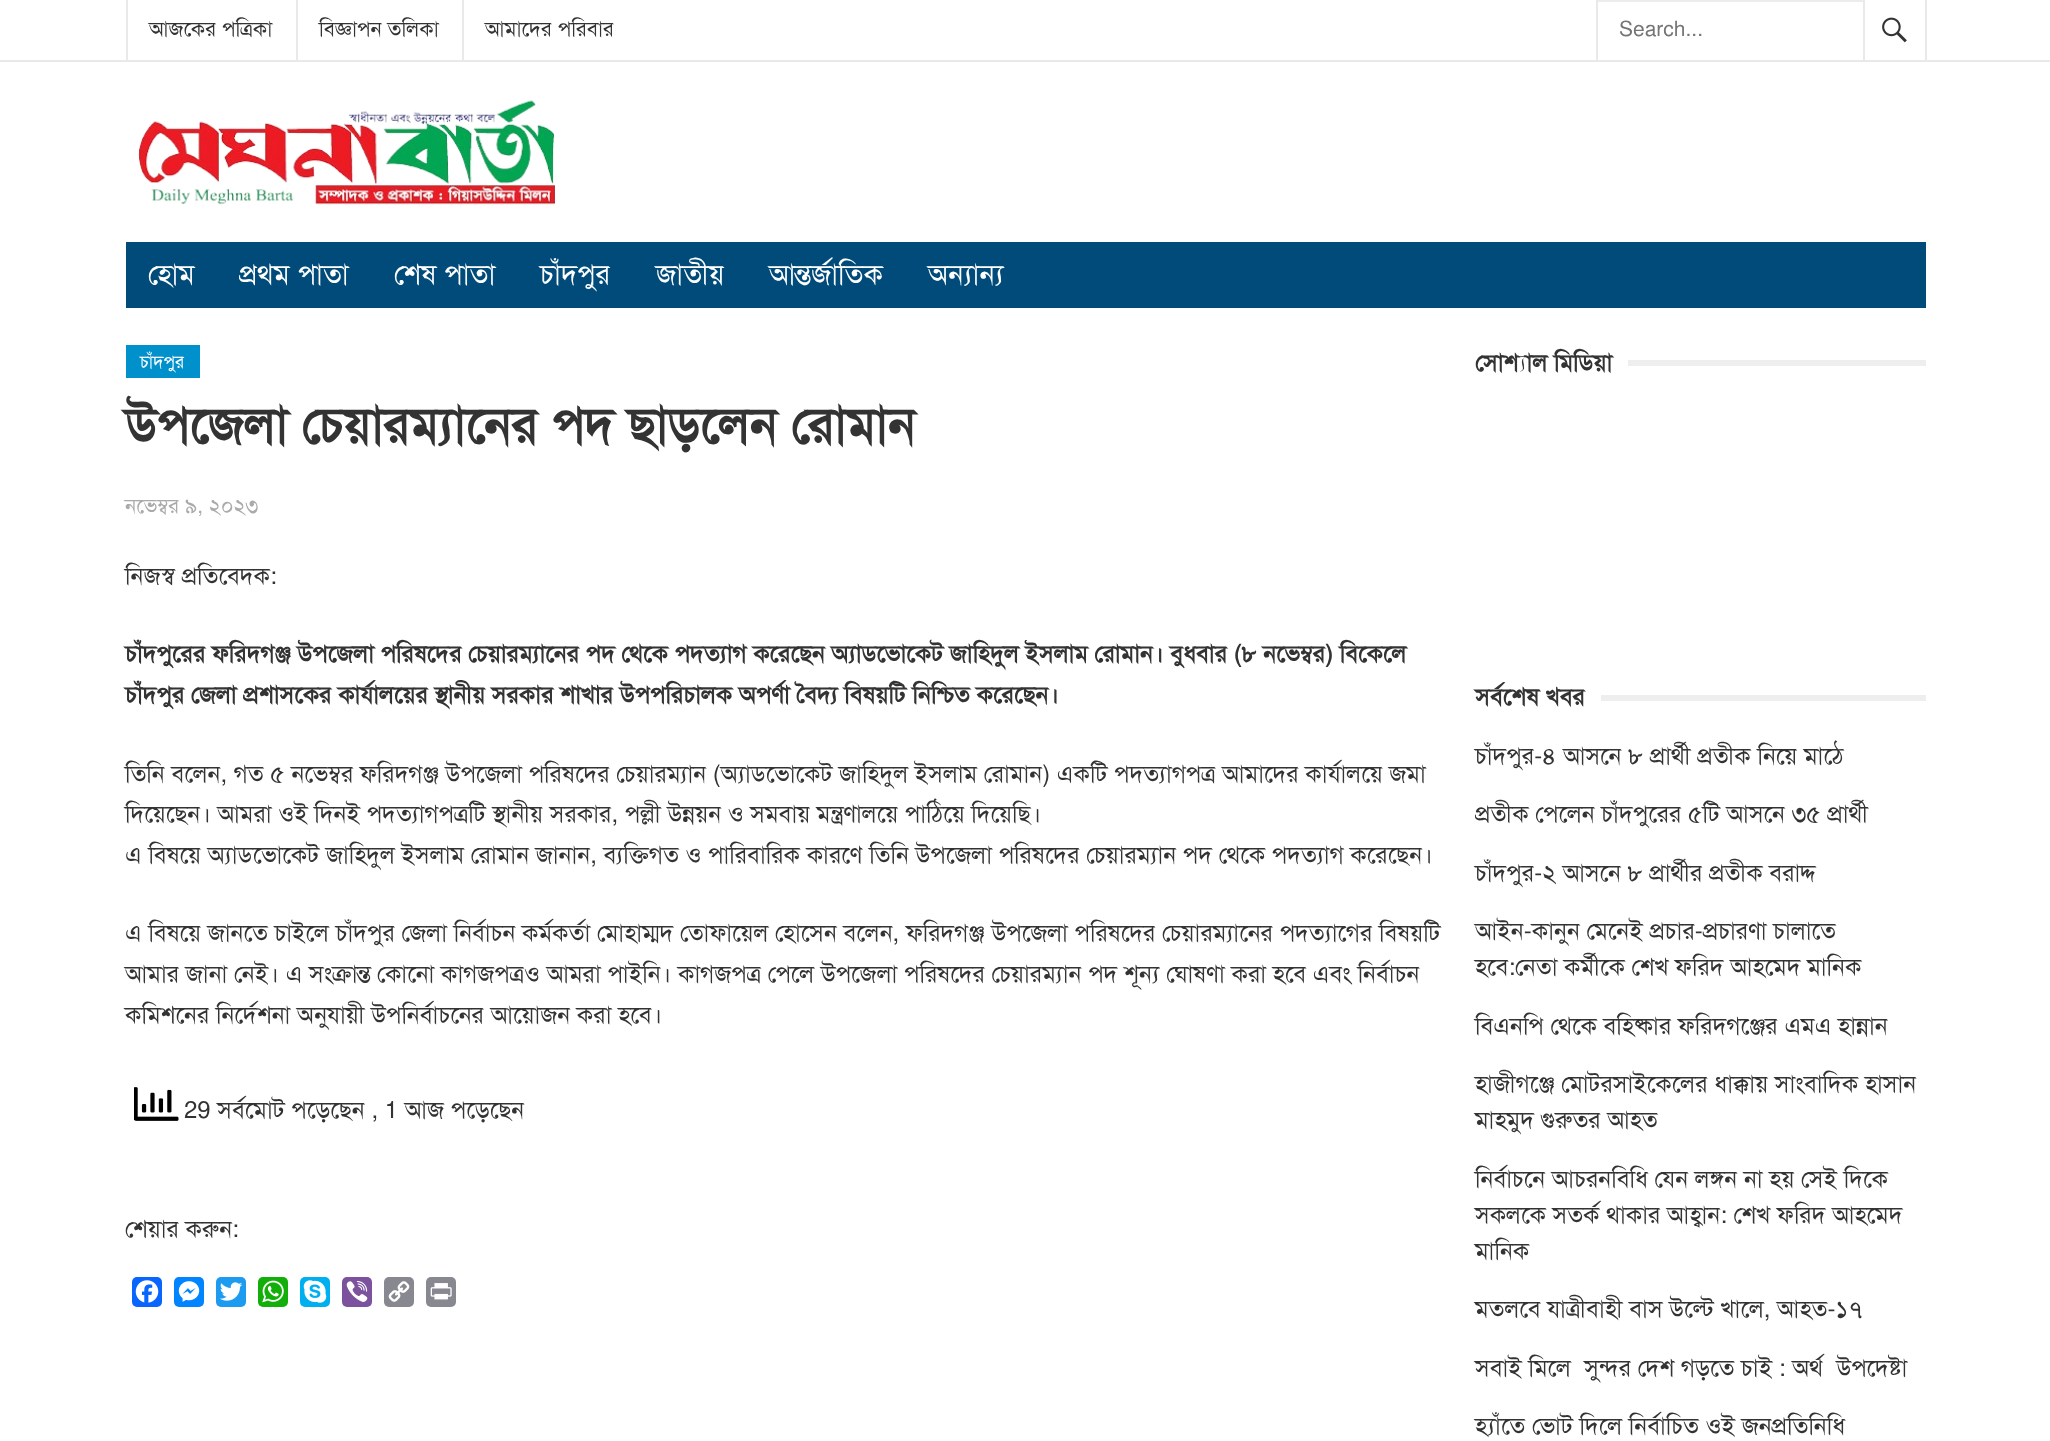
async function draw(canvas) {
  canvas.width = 2050;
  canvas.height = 1441;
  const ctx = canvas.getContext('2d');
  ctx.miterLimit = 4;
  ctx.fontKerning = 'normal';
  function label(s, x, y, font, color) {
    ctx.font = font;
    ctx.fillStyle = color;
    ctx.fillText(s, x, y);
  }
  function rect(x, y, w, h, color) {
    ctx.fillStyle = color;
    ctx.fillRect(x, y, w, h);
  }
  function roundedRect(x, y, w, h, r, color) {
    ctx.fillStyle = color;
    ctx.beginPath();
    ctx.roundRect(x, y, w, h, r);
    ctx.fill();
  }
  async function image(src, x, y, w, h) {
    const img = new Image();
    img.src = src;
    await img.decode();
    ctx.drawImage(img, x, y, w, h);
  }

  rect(0, 0, 2050, 1441, '#fff');
  rect(0, 60, 2050, 2, '#e9e9e9');
  rect(126, 0, 2, 60, '#e9e9e9');
  label('আজকের পত্রিকা', 149, 36, '21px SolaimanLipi', '#333');
  rect(296, 0, 2, 60, '#e9e9e9');
  label('বিজ্ঞাপন তলিকা', 319, 36, '21px SolaimanLipi', '#333');
  rect(462, 0, 2, 60, '#e9e9e9');
  label('আমাদের পরিবার', 485, 36, '21px SolaimanLipi', '#333');
  rect(1925, 0, 2, 60, '#e9e9e9');
  rect(1596, 0, 2, 60, '#e9e9e9');
  rect(1598, 0, 268, 2, '#ececec');
  label('Search...', 1619, 36, '21px SolaimanLipi', '#757575');
  rect(1865, 0, 1, 2, '#fff');
  rect(1863, 0, 2, 60, '#e9e9e9');
  await image('assets/img1.png', 1882, 17, 25, 26);
  await image('assets/img2.png', 138, 100, 417, 105);
  rect(126, 242, 1800, 66, '#004b79');
  label('হোম', 148, 284, '28.5px SolaimanLipi', '#fff');
  label('প্রথম পাতা', 239, 284, '28.5px SolaimanLipi', '#fff');
  label('শেষ পাতা', 394, 284, '28.5px SolaimanLipi', '#fff');
  label('চাঁদপুর', 540, 284, '28.5px SolaimanLipi', '#fff');
  label('জাতীয়', 656, 284, '28.5px SolaimanLipi', '#fff');
  label('আন্তর্জাতিক', 769, 284, '28.5px SolaimanLipi', '#fff');
  label('অন্যান্য', 928, 284, '28.5px SolaimanLipi', '#fff');
  rect(126, 345, 74, 33, '#0091cd');
  label('চাঁদপুর', 140, 368, '18px SolaimanLipi', '#fff');
  label('উপজেলা চেয়ারম্যানের পদ ছাড়লেন রোমান', 125, 443, 'bold 51px SolaimanLipi', '#333');
  label('নভেম্বর ৯, ২০২৩', 125, 513, '21px SolaimanLipi', '#aaa');
  label('নিজস্ব প্রতিবেদক:', 125, 584, '24px SolaimanLipi', '#333');
  label('চাঁদপুরের ফরিদগঞ্জ উপজেলা পরিষদের চেয়ারম্যানের পদ থেকে পদত্যাগ করেছেন অ্যাডভোকেট জাহিদুল ইসলাম রোমান। বুধবার (৮ নভেম্বর) বিকেলে', 125, 662, 'bold 24px SolaimanLipi', '#333');
  label('চাঁদপুর জেলা প্রশাসকের কার্যালয়ের স্থানীয় সরকার শাখার উপপরিচালক অপর্ণা বৈদ্য বিষয়টি নিশ্চিত করেছেন।', 125, 703, 'bold 24px SolaimanLipi', '#333');
  label('তিনি বলেন, গত ৫ নভেম্বর ফরিদগঞ্জ উপজেলা পরিষদের চেয়ারম্যান (অ্যাডভোকেট জাহিদুল ইসলাম রোমান) একটি পদত্যাগপত্র আমাদের কার্যালয়ে জমা', 125, 782, '24px SolaimanLipi', '#333');
  label('দিয়েছেন। আমরা ওই দিনই পদত্যাগপত্রটি স্থানীয় সরকার, পল্লী উন্নয়ন ও সমবায় মন্ত্রণালয়ে পাঠিয়ে দিয়েছি।', 125, 822, '24px SolaimanLipi', '#333');
  label('এ বিষয়ে অ্যাডভোকেট জাহিদুল ইসলাম রোমান জানান, ব্যক্তিগত ও পারিবারিক কারণে তিনি উপজেলা পরিষদের চেয়ারম্যান পদ থেকে পদত্যাগ করেছেন।', 125, 863, '24px SolaimanLipi', '#333');
  label('এ বিষয়ে জানতে চাইলে চাঁদপুর জেলা নির্বাচন কর্মকর্তা মোহাম্মদ তোফায়েল হোসেন বলেন, ফরিদগঞ্জ উপজেলা পরিষদের চেয়ারম্যানের পদত্যাগের বিষয়টি', 125, 941, '24px SolaimanLipi', '#333');
  label('আমার জানা নেই। এ সংক্রান্ত কোনো কাগজপত্রও আমরা পাইনি। কাগজপত্র পেলে উপজেলা পরিষদের চেয়ারম্যান পদ শূন্য ঘোষণা করা হবে এবং নির্বাচন', 125, 982, '24px SolaimanLipi', '#333');
  label('কমিশনের নির্দেশনা অনুযায়ী উপনির্বাচনের আয়োজন করা হবে।', 125, 1023, '24px SolaimanLipi', '#333');
  await image('assets/img3.png', 134, 1087, 45, 34);
  label('29 সর্বমোট পড়েছেন , 1 আজ পড়েছেন', 184, 1118, '24px SolaimanLipi', '#333');
  label('শেয়ার করুন:', 125, 1237, '24px SolaimanLipi', '#333');
  roundedRect(132, 1277, 30, 30, 5, '#0866ff');
  await image('assets/img4.png', 135, 1280, 24, 23);
  roundedRect(174, 1277, 30, 30, 5, '#0084ff');
  await image('assets/img5.png', 178, 1281, 22, 21);
  roundedRect(216, 1277, 30, 30, 5, '#1d9bf0');
  await image('assets/img6.png', 220, 1282, 23, 19);
  roundedRect(258, 1277, 30, 30, 5, '#12af0a');
  await image('assets/img7.png', 262, 1280, 22, 23);
  roundedRect(300, 1277, 30, 30, 5, '#00aff0');
  await image('assets/img8.png', 303, 1280, 24, 23);
  roundedRect(342, 1277, 30, 30, 5, '#7c529e');
  await image('assets/img9.png', 346, 1281, 22, 21);
  roundedRect(384, 1277, 30, 30, 5, '#888990');
  await image('assets/img10.png', 388, 1281, 22, 21);
  roundedRect(426, 1277, 30, 30, 5, '#888990');
  await image('assets/img11.png', 430, 1283, 22, 17);
  label('সোশ্যাল মিডিয়া', 1475, 371, 'bold 24px SolaimanLipi', '#333');
  rect(1628, 360, 298, 6, '#eee');
  label('সর্বশেষ খবর', 1475, 705, 'bold 24px SolaimanLipi', '#333');
  rect(1601, 695, 325, 6, '#eee');
  label('চাঁদপুর-৪ আসনে ৮ প্রার্থী প্রতীক নিয়ে মাঠে', 1475, 764, '24px SolaimanLipi', '#333');
  label('প্রতীক পেলেন চাঁদপুরের ৫টি আসনে ৩৫ প্রার্থী', 1475, 822, '24px SolaimanLipi', '#333');
  label('চাঁদপুর-২ আসনে ৮ প্রার্থীর প্রতীক বরাদ্দ', 1475, 881, '24px SolaimanLipi', '#333');
  label('আইন-কানুন মেনেই প্রচার-প্রচারণা চালাতে', 1475, 939, '24px SolaimanLipi', '#333');
  label('হবে:নেতা কর্মীকে শেখ ফরিদ আহমেদ মানিক', 1475, 975, '24px SolaimanLipi', '#333');
  label('বিএনপি থেকে বহিষ্কার ফরিদগঞ্জের এমএ হান্নান', 1475, 1034, '24px SolaimanLipi', '#333');
  label('হাজীগঞ্জে মোটরসাইকেলের ধাক্কায় সাংবাদিক হাসান', 1475, 1092, '24px SolaimanLipi', '#333');
  label('মাহমুদ গুরুতর আহত', 1475, 1128, '24px SolaimanLipi', '#333');
  label('নির্বাচনে আচরনবিধি যেন লঙ্গন না হয় সেই দিকে', 1475, 1187, '24px SolaimanLipi', '#333');
  label('সকলকে সতর্ক থাকার আহ্বান: শেখ ফরিদ আহমেদ', 1475, 1223, '24px SolaimanLipi', '#333');
  label('মানিক', 1475, 1259, '24px SolaimanLipi', '#333');
  label('মতলবে যাত্রীবাহী বাস উল্টে খালে, আহত-১৭', 1475, 1317, '24px SolaimanLipi', '#333');
  label('সবাই মিলে  সুন্দর দেশ গড়তে চাই : অর্থ  উপদেষ্টা', 1475, 1376, '24px SolaimanLipi', '#333');
  label('হ্যাঁতে ভোট দিলে নির্বাচিত ওই জনপ্রতিনিধি', 1475, 1434, '24px SolaimanLipi', '#333');
}

draw(document.querySelector('canvas'));
